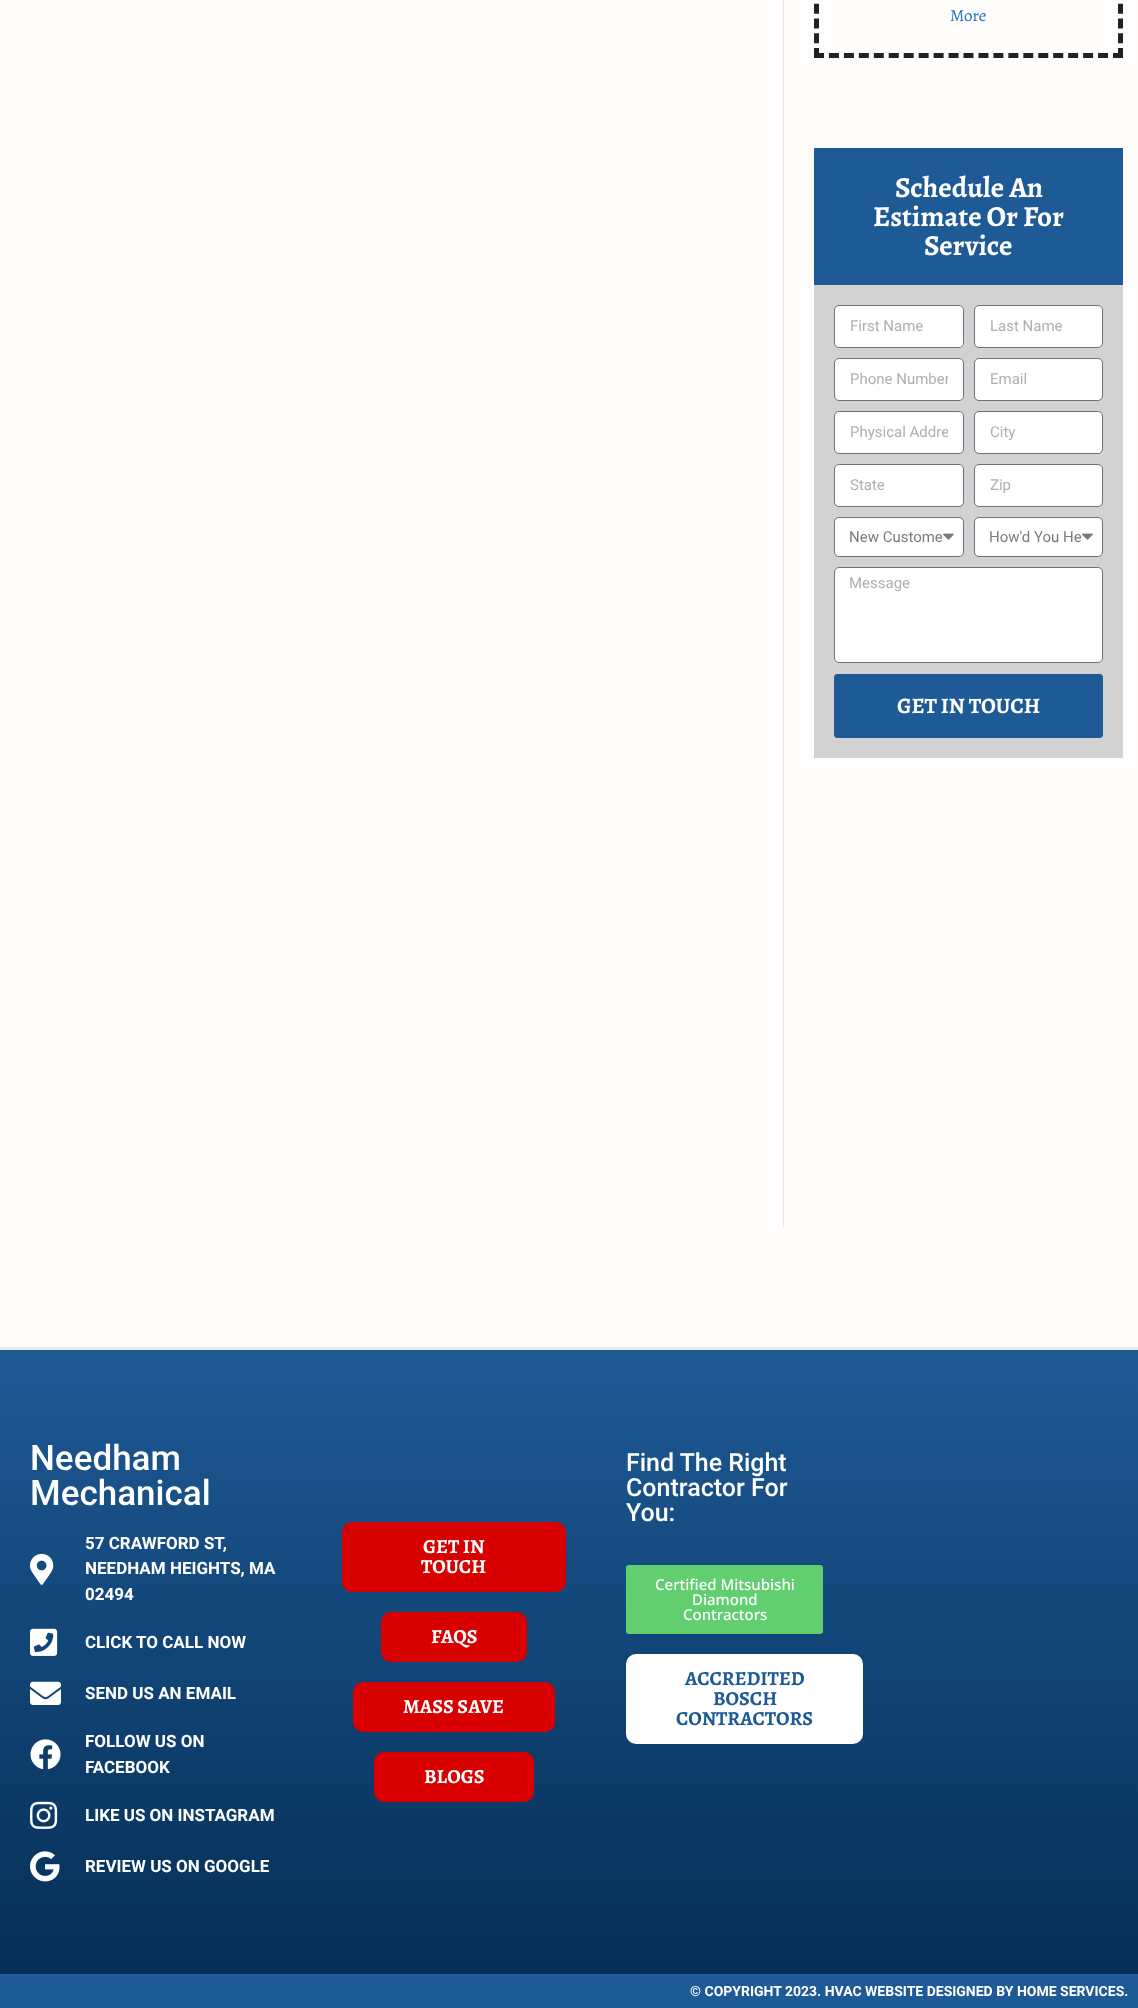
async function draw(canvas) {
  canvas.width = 1138;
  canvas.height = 2008;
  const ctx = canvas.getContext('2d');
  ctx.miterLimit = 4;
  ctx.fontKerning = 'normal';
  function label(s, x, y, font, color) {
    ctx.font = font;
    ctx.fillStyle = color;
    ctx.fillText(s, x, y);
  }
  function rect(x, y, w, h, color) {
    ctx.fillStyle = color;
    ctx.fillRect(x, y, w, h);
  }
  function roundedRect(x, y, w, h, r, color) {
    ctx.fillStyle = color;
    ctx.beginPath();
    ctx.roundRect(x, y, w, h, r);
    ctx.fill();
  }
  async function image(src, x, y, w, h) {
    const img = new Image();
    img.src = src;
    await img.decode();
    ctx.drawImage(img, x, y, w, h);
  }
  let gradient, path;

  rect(0, 0, 1138, 2008, '#fffcfc');
  rect(783, 0, 1, 1227, '#e6e6e6');
  path = new Path2D('M1120.5-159V58');
  ctx.strokeStyle = '#222';
  ctx.lineWidth = 5;
  ctx.setLineDash([10, 4.79]);
  ctx.stroke(path);
  path = new Path2D('M814 55.5H1123');
  ctx.setLineDash([10, 4.95]);
  ctx.stroke(path);
  path = new Path2D('M816.5-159V58');
  ctx.setLineDash([10, 4.79]);
  ctx.stroke(path);
  label('More', 950, 21, '17px Alegreya', '#1e73be');
  rect(814, 148, 309, 137, '#1e5a95');
  label('Schedule An', 895, 197, 'bold 29px Alegreya', '#fff');
  label('Estimate Or For', 873, 226, 'bold 29px Alegreya', '#fff');
  label('Service', 924, 255, 'bold 29px Alegreya', '#fff');
  rect(814, 285, 309, 473, '#d2d2d2');
  ctx.fillStyle = '#fff';
  ctx.beginPath();
  ctx.roundRect(834.5, 305.5, 129, 42, 4.5);
  ctx.fill();
  ctx.strokeStyle = '#69727d';
  ctx.lineWidth = 1;
  ctx.setLineDash([]);
  ctx.stroke();
  label('First Name', 850, 331, '15px Roboto', '#afafaf');
  ctx.fillStyle = '#fff';
  ctx.beginPath();
  ctx.roundRect(974.5, 305.5, 128, 42, 4.5);
  ctx.fill();
  ctx.stroke();
  label('Last Name', 990, 331, '15px Roboto', '#afafaf');
  ctx.fillStyle = '#fff';
  ctx.beginPath();
  ctx.roundRect(834.5, 358.5, 129, 42, 4.5);
  ctx.fill();
  ctx.stroke();
  ctx.save();
  ctx.beginPath();
  ctx.rect(850, 370, 98, 18);
  ctx.clip();
  label('Phone Number', 850, 384, '15px Roboto', '#afafaf');
  ctx.restore();
  ctx.beginPath();
  ctx.roundRect(974.5, 358.5, 128, 42, 4.5);
  ctx.fill();
  ctx.stroke();
  label('Email', 990, 384, '15px Roboto', '#afafaf');
  ctx.fillStyle = '#fff';
  ctx.beginPath();
  ctx.roundRect(834.5, 411.5, 129, 42, 4.5);
  ctx.fill();
  ctx.stroke();
  ctx.save();
  ctx.beginPath();
  ctx.rect(850, 423, 98, 18);
  ctx.clip();
  label('Physical Addre', 850, 437, '15px Roboto', '#afafaf');
  ctx.restore();
  ctx.beginPath();
  ctx.roundRect(974.5, 411.5, 128, 42, 4.5);
  ctx.fill();
  ctx.stroke();
  label('City', 990, 437, '15px Roboto', '#afafaf');
  ctx.fillStyle = '#fff';
  ctx.beginPath();
  ctx.roundRect(834.5, 464.5, 129, 42, 4.5);
  ctx.fill();
  ctx.stroke();
  label('State', 850, 490, '15px Roboto', '#afafaf');
  ctx.fillStyle = '#fff';
  ctx.beginPath();
  ctx.roundRect(974.5, 464.5, 128, 42, 4.5);
  ctx.fill();
  ctx.stroke();
  label('Zip', 990, 490, '15px Roboto', '#afafaf');
  ctx.fillStyle = '#fff';
  ctx.beginPath();
  ctx.roundRect(834.5, 517.5, 129, 39, 4.5);
  ctx.fill();
  ctx.stroke();
  label('New Custome', 849, 542, '15px Roboto', '#7a7a7a');
  await image('assets/img1.png', 943, 533, 11, 7);
  ctx.fillStyle = '#fff';
  ctx.beginPath();
  ctx.roundRect(974.5, 517.5, 128, 39, 4.5);
  ctx.fill();
  ctx.stroke();
  label('How\'d You He', 989, 542, '15px Roboto', '#7a7a7a');
  await image('assets/img1.png', 1082, 533, 11, 7);
  ctx.fillStyle = '#fff';
  ctx.beginPath();
  ctx.roundRect(834.5, 567.5, 268, 95, 4.5);
  ctx.fill();
  ctx.stroke();
  label('Message', 849, 588, '15px Roboto', '#afafaf');
  ctx.fillStyle = '#1e5a95';
  ctx.beginPath();
  ctx.roundRect(834.5, 674.5, 268, 63, 2.5);
  ctx.fill();
  ctx.strokeStyle = '#1e5a95';
  ctx.stroke();
  label('GET IN TOUCH', 897, 713, 'bold 22px Alegreya', '#fff');
  gradient = ctx.createLinearGradient(569, 1350, 569, 1974);
  gradient.addColorStop(0, '#1e5a95');
  gradient.addColorStop(1, '#052e56');
  ctx.fillStyle = gradient;
  ctx.fillRect(0, 1350, 1138, 624);
  rect(0, 1347, 1138, 3, '#e9e9e9');
  label('Needham', 30, 1470, '500 35px Roboto', '#fff');
  label('Mechanical', 30, 1505, '500 35px Roboto', '#fff');
  await image('assets/img2.png', 30, 1553, 24, 32);
  label('57 CRAWFORD ST,', 85, 1549, 'bold 17px Roboto', '#fff');
  label('NEEDHAM HEIGHTS, MA', 85, 1574, 'bold 17px Roboto', '#fff');
  label('02494', 85, 1600, 'bold 17px Roboto', '#fff');
  await image('assets/img3.png', 30, 1628, 28, 28);
  label('CLICK TO CALL NOW', 85, 1648, 'bold 17px Roboto', '#fff');
  await image('assets/img4.png', 30, 1681, 31, 24);
  label('SEND US AN EMAIL', 85, 1699, 'bold 17px Roboto', '#fff');
  await image('assets/img5.png', 30, 1739, 31, 31);
  label('FOLLOW US ON', 85, 1747, 'bold 17px Roboto', '#fff');
  label('FACEBOOK', 85, 1773, 'bold 17px Roboto', '#fff');
  await image('assets/img6.png', 30, 1801, 28, 28);
  label('LIKE US ON INSTAGRAM', 85, 1821, 'bold 17px Roboto', '#fff');
  await image('assets/img7.png', 30, 1851, 30, 31);
  label('REVIEW US ON GOOGLE', 85, 1872, 'bold 17px Roboto', '#fff');
  roundedRect(342, 1522, 224, 70, 10, '#d80000');
  label('GET IN', 423, 1553, 'bold 20px Alegreya', '#fff');
  label('TOUCH', 421, 1573, 'bold 20px Alegreya', '#fff');
  roundedRect(381, 1612, 146, 50, 10, '#d80000');
  label('FAQS', 431, 1643, 'bold 20px Alegreya', '#fff');
  roundedRect(353, 1682, 202, 50, 10, '#d80000');
  label('MASS SAVE', 403, 1713, 'bold 20px Alegreya', '#fff');
  roundedRect(374, 1752, 160, 50, 10, '#d80000');
  label('BLOGS', 424, 1783, 'bold 20px Alegreya', '#fff');
  label('Find The Right', 626, 1471, '500 25px Roboto', '#fff');
  label('Contractor For', 626, 1496, '500 25px Roboto', '#fff');
  label('You:', 626, 1521, '500 25px Roboto', '#fff');
  roundedRect(626, 1565, 197, 69, 3, '#61ce70');
  label('Certified Mitsubishi', 655, 1590, '500 15px Noto Sans', '#fff');
  label('Diamond', 692, 1605, '500 15px Noto Sans', '#fff');
  label('Contractors', 683, 1620, '500 15px Noto Sans', '#fff');
  roundedRect(626, 1654, 237, 90, 10, '#fff');
  label('ACCREDITED', 685, 1685, 'bold 20px Alegreya', '#1e5a95');
  label('BOSCH', 713, 1705, 'bold 20px Alegreya', '#1e5a95');
  label('CONTRACTORS', 676, 1725, 'bold 20px Alegreya', '#1e5a95');
  rect(0, 1974, 1138, 34, '#1e5a95');
  label('© COPYRIGHT 2023. HVAC WEBSITE DESIGNED BY HOME SERVICES.', 690, 1996, 'bold 14px Roboto', '#fff');
}

draw(document.querySelector('canvas'));
